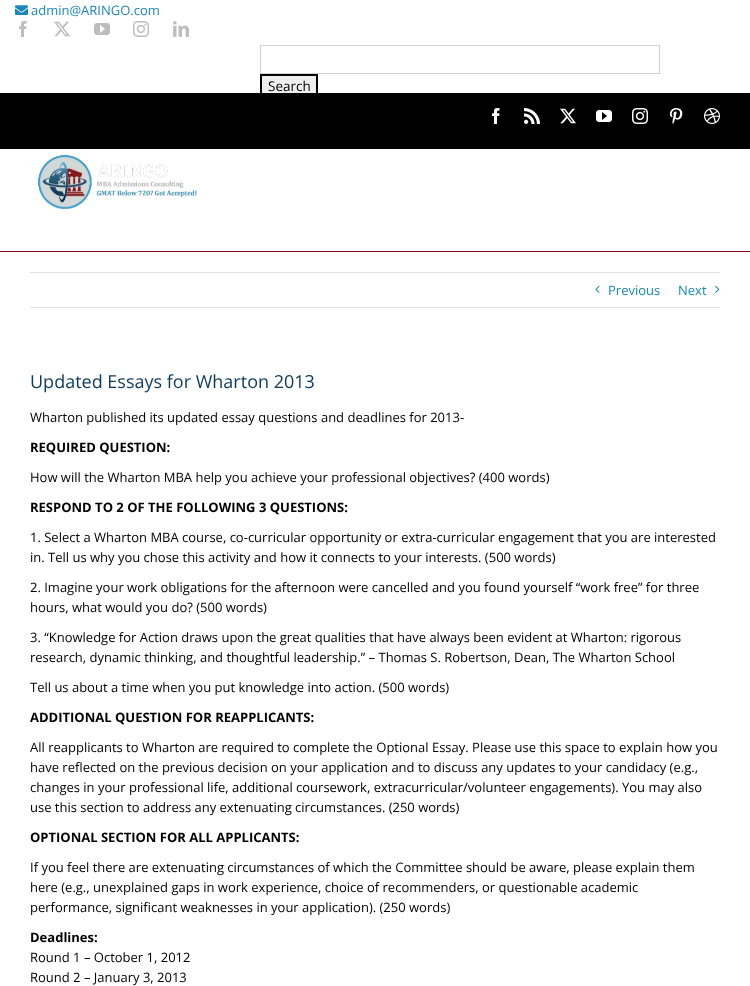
async function draw(canvas) {
  canvas.width = 750;
  canvas.height = 986;
  const ctx = canvas.getContext('2d');
  ctx.miterLimit = 4;
  ctx.fontKerning = 'normal';
  function label(s, x, y, font, color) {
    ctx.font = font;
    ctx.fillStyle = color;
    ctx.fillText(s, x, y);
  }
  function rect(x, y, w, h, color) {
    ctx.fillStyle = color;
    ctx.fillRect(x, y, w, h);
  }
  async function image(src, x, y, w, h) {
    const img = new Image();
    img.src = src;
    await img.decode();
    ctx.drawImage(img, x, y, w, h);
  }

  rect(0, 0, 750, 986, '#fff');
  await image('assets/img1.png', 15, 5, 13, 10);
  label('admin@ARINGO.com', 31, 15, '13px Open Sans', '#1987ba');
  await image('assets/img2.png', 19, 21, 8, 16);
  await image('assets/img3.png', 54, 21, 16, 16);
  await image('assets/img4.png', 94, 23, 16, 12);
  await image('assets/img5.png', 133, 21, 16, 16);
  await image('assets/img6.png', 173, 21, 16, 16);
  ctx.strokeStyle = '#d2d2d2';
  ctx.strokeRect(260.5, 45.5, 399, 28);
  rect(262, 76, 54, 17, '#efefef');
  ctx.strokeStyle = '#000';
  ctx.lineWidth = 2;
  ctx.strokeRect(261, 75, 56, 22);
  label('Search', 268, 91, '13.5px Open Sans', '#000');
  rect(0, 93, 750, 56, '#000');
  await image('assets/img7.png', 492, 108, 8, 16);
  await image('assets/img8.png', 524, 108, 16, 16);
  await image('assets/img9.png', 560, 108, 16, 16);
  await image('assets/img10.png', 596, 110, 16, 12);
  await image('assets/img11.png', 632, 108, 16, 16);
  await image('assets/img12.png', 669, 108, 14, 16);
  await image('assets/img13.png', 704, 108, 16, 16);
  rect(0, 251, 750, 1, '#880016');
  await image('assets/img14.png', 38, 155, 159, 55);
  rect(30, 272, 690, 1, '#e0dede');
  rect(30, 307, 690, 1, '#e0dede');
  await image('assets/img15.png', 595, 285, 5, 8);
  label('Previous', 608, 295, '13px Open Sans', '#1987ba');
  label('Next', 678, 295, '13px Open Sans', '#1987ba');
  await image('assets/img16.png', 715, 285, 5, 8);
  label('Updated Essays for Wharton 2013', 30, 388, '18px Open Sans', '#0c3a5c');
  label('Wharton published its updated essay questions and deadlines for 2013-', 30, 422, '13px Open Sans', '#000');
  label('REQUIRED QUESTION:', 30, 452, 'bold 13px Open Sans', '#000');
  label('How will the Wharton MBA help you achieve your professional objectives? (400 words)', 30, 482, '13px Open Sans', '#000');
  label('RESPOND TO 2 OF THE FOLLOWING 3 QUESTIONS:', 30, 512, 'bold 13px Open Sans', '#000');
  label('1. Select a Wharton MBA course, co-curricular opportunity or extra-curricular engagement that you are interested', 30, 542, '13px Open Sans', '#000');
  label('in. Tell us why you chose this activity and how it connects to your interests. (500 words)', 30, 562, '13px Open Sans', '#000');
  label('2. Imagine your work obligations for the afternoon were cancelled and you found yourself “work free” for three', 30, 592, '13px Open Sans', '#000');
  label('hours, what would you do? (500 words)', 30, 612, '13px Open Sans', '#000');
  label('3. “Knowledge for Action draws upon the great qualities that have always been evident at Wharton: rigorous', 30, 642, '13px Open Sans', '#000');
  label('research, dynamic thinking, and thoughtful leadership.” – Thomas S. Robertson, Dean, The Wharton School', 30, 662, '13px Open Sans', '#000');
  label('Tell us about a time when you put knowledge into action. (500 words)', 30, 692, '13px Open Sans', '#000');
  label('ADDITIONAL QUESTION FOR REAPPLICANTS:', 30, 722, 'bold 13px Open Sans', '#000');
  label('All reapplicants to Wharton are required to complete the Optional Essay. Please use this space to explain how you', 30, 752, '13px Open Sans', '#000');
  label('have reflected on the previous decision on your application and to discuss any updates to your candidacy (e.g.,', 30, 772, '13px Open Sans', '#000');
  label('changes in your professional life, additional coursework, extracurricular/volunteer engagements). You may also', 30, 792, '13px Open Sans', '#000');
  label('use this section to address any extenuating circumstances. (250 words)', 30, 812, '13px Open Sans', '#000');
  label('OPTIONAL SECTION FOR ALL APPLICANTS:', 30, 842, 'bold 13px Open Sans', '#000');
  label('If you feel there are extenuating circumstances of which the Committee should be aware, please explain them', 30, 872, '13px Open Sans', '#000');
  label('here (e.g., unexplained gaps in work experience, choice of recommenders, or questionable academic', 30, 892, '13px Open Sans', '#000');
  label('performance, significant weaknesses in your application). (250 words)', 30, 912, '13px Open Sans', '#000');
  label('Deadlines:', 30, 942, 'bold 13px Open Sans', '#000');
  label('Round 1 – October 1, 2012', 30, 962, '13px Open Sans', '#000');
  label('Round 2 – January 3, 2013', 30, 982, '13px Open Sans', '#000');
}

draw(document.querySelector('canvas'));
